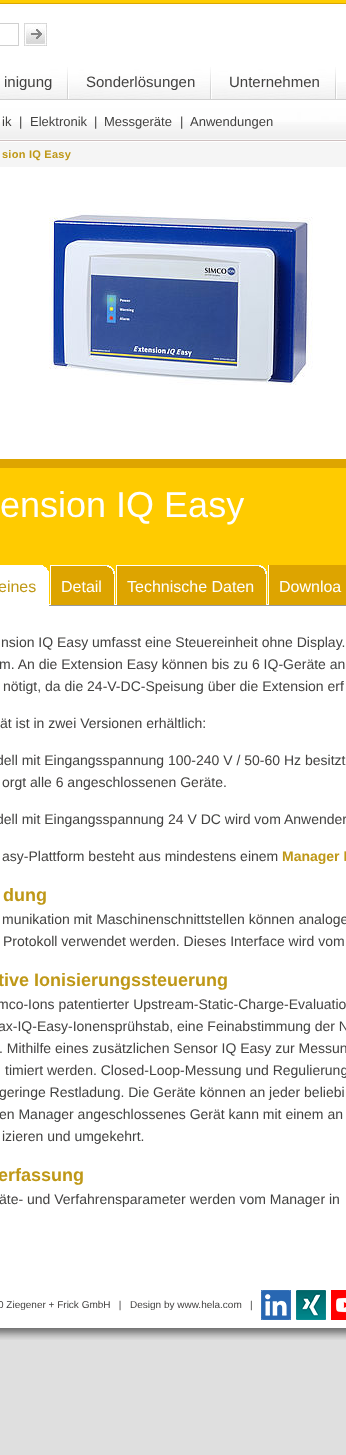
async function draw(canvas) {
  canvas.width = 346;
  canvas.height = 1455;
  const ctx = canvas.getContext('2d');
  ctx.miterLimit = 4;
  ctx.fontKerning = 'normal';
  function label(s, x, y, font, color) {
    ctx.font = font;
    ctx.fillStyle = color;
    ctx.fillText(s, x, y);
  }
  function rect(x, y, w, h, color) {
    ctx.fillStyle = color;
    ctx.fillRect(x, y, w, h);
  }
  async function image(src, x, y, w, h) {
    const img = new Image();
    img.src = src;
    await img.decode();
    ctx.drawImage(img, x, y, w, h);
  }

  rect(0, 0, 346, 1455, '#dfdfdf');
  await image('assets/img1.png', 0, 0, 346, 3);
  await image('assets/img2.png', 0, 3, 346, 119);
  ctx.strokeStyle = '#d0d0d0';
  ctx.strokeRect(-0.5, 23.5, 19, 22);
  await image('assets/img3.png', 24, 23, 23, 23);
  rect(0, 99, 346, 1, '#d1d1d1');
  await image('assets/img4.png', 0, 67, 68, 32);
  label('inigung', 4, 87, '15px Liberation Sans', '#434241');
  await image('assets/img5.png', 69, 67, 142, 32);
  label('Sonderlösungen', 86, 87, '15px Liberation Sans', '#434241');
  await image('assets/img6.png', 212, 67, 124, 32);
  label('Unternehmen', 229, 87, '15px Liberation Sans', '#434241');
  await image('assets/img7.png', 337, 82, 9, 17);
  rect(0, 141, 346, 1146, '#fff');
  await image('assets/img8.png', 0, 122, 346, 19);
  label('ik', 2, 126, '13px Liberation Sans', '#434241');
  label('|', 19, 126, '13px Liberation Sans', '#434241');
  label('Elektronik', 30, 126, '13px Liberation Sans', '#434241');
  label('|', 94, 126, '13px Liberation Sans', '#434241');
  label('Messgeräte', 104, 126, '13px Liberation Sans', '#434241');
  label('|', 180, 126, '13px Liberation Sans', '#434241');
  label('Anwendungen', 190, 126, '13px Liberation Sans', '#434241');
  rect(0, 142, 346, 25, '#f5f5f5');
  ctx.letterSpacing = '0.25px';
  label('sion IQ Easy', 2, 158, 'bold 11px Liberation Sans', '#bf9817');
  await image('assets/img9.png', 49, 210, 264, 175);
  await image('assets/img10.png', 0, 459, 346, 145);
  ctx.letterSpacing = '0px';
  label('ension IQ Easy', 0, 517, '36px Liberation Sans', '#fff');
  await image('assets/img11.png', 0, 565, 49, 41);
  label('eines', -2, 592, '16px Liberation Sans', '#bf9817');
  await image('assets/img12.png', 51, 565, 64, 40);
  rect(50, 565, 1, 40, '#fff');
  label('Detail', 61, 592, '16px Liberation Sans', '#fff');
  await image('assets/img13.png', 117, 565, 150, 40);
  rect(116, 565, 1, 40, '#fff');
  label('Technische Daten', 127, 592, '16px Liberation Sans', '#fff');
  rect(269, 565, 77, 40, '#dda400');
  rect(268, 565, 1, 40, '#fff');
  label('Downloa', 279, 592, '16px Liberation Sans', '#fff');
  rect(49, 605, 297, 1, '#999');
  label('nsion IQ Easy umfasst eine Steuereinheit ohne Display.', 1, 647, '14px Liberation Sans', '#434241');
  label('m. An die Extension Easy können bis zu 6 IQ-Geräte an', -1, 669, '14px Liberation Sans', '#434241');
  label('nötigt, da die 24-V-DC-Speisung über die Extension erf', 3, 691, '14px Liberation Sans', '#434241');
  label('ät ist in zwei Versionen erhältlich:', 0, 728, '14px Liberation Sans', '#434241');
  label('dell mit Eingangsspannung 100-240 V / 50-60 Hz besitzt', -4, 765, '14px Liberation Sans', '#434241');
  label('orgt alle 6 angeschlossenen Geräte.', 2, 787, '14px Liberation Sans', '#434241');
  label('dell mit Eingangsspannung 24 V DC wird vom Anwender', -4, 824, '14px Liberation Sans', '#434241');
  label('asy-Plattform besteht aus mindestens einem', 2, 861, '14px Liberation Sans', '#434241');
  label('Manager I', 282, 861, 'bold 14px Liberation Sans', '#bf9817');
  label('dung', 3, 901, 'bold 18px Liberation Sans', '#bf9817');
  label('munikation mit Maschinenschnittstellen können analoge', 2, 924, '14px Liberation Sans', '#434241');
  label('Protokoll verwendet werden. Dieses Interface wird vom', 3, 946, '14px Liberation Sans', '#434241');
  label('tive Ionisierungssteuerung', -2, 986, 'bold 18px Liberation Sans', '#bf9817');
  label('mco-Ions patentierter Upstream-Static-Charge-Evaluatio', -3, 1009, '14px Liberation Sans', '#434241');
  label('ax-IQ-Easy-Ionensprühstab, eine Feinabstimmung der N', -2, 1031, '14px Liberation Sans', '#434241');
  label('. Mithilfe eines zusätzlichen Sensor IQ Easy zur Messun', -1, 1053, '14px Liberation Sans', '#434241');
  label('timiert werden. Closed-Loop-Messung und Regulierung', 5, 1075, '14px Liberation Sans', '#434241');
  label('geringe Restladung. Die Geräte können an jeder beliebi', -1, 1097, '14px Liberation Sans', '#434241');
  label('en Manager angeschlossenes Gerät kann mit einem an', -1, 1119, '14px Liberation Sans', '#434241');
  label('izieren und umgekehrt.', 2, 1141, '14px Liberation Sans', '#434241');
  label('erfassung', -2, 1181, 'bold 18px Liberation Sans', '#bf9817');
  label('äte- und Verfahrensparameter werden vom Manager in', -1, 1204, '14px Liberation Sans', '#434241');
  await image('assets/img14.png', 0, 1287, 346, 53);
  label('0 Ziegener + Frick GmbH   |', -2, 1308, '10px Liberation Sans', '#434241');
  label('Design by www.hela.com', 130, 1308, '10px Liberation Sans', '#434241');
  label('|', 250, 1308, '10px Liberation Sans', '#434241');
  await image('assets/img15.png', 261, 1290, 30, 30);
  await image('assets/img16.png', 296, 1290, 30, 30);
  await image('assets/img17.png', 331, 1290, 15, 30);
}

draw(document.querySelector('canvas'));
